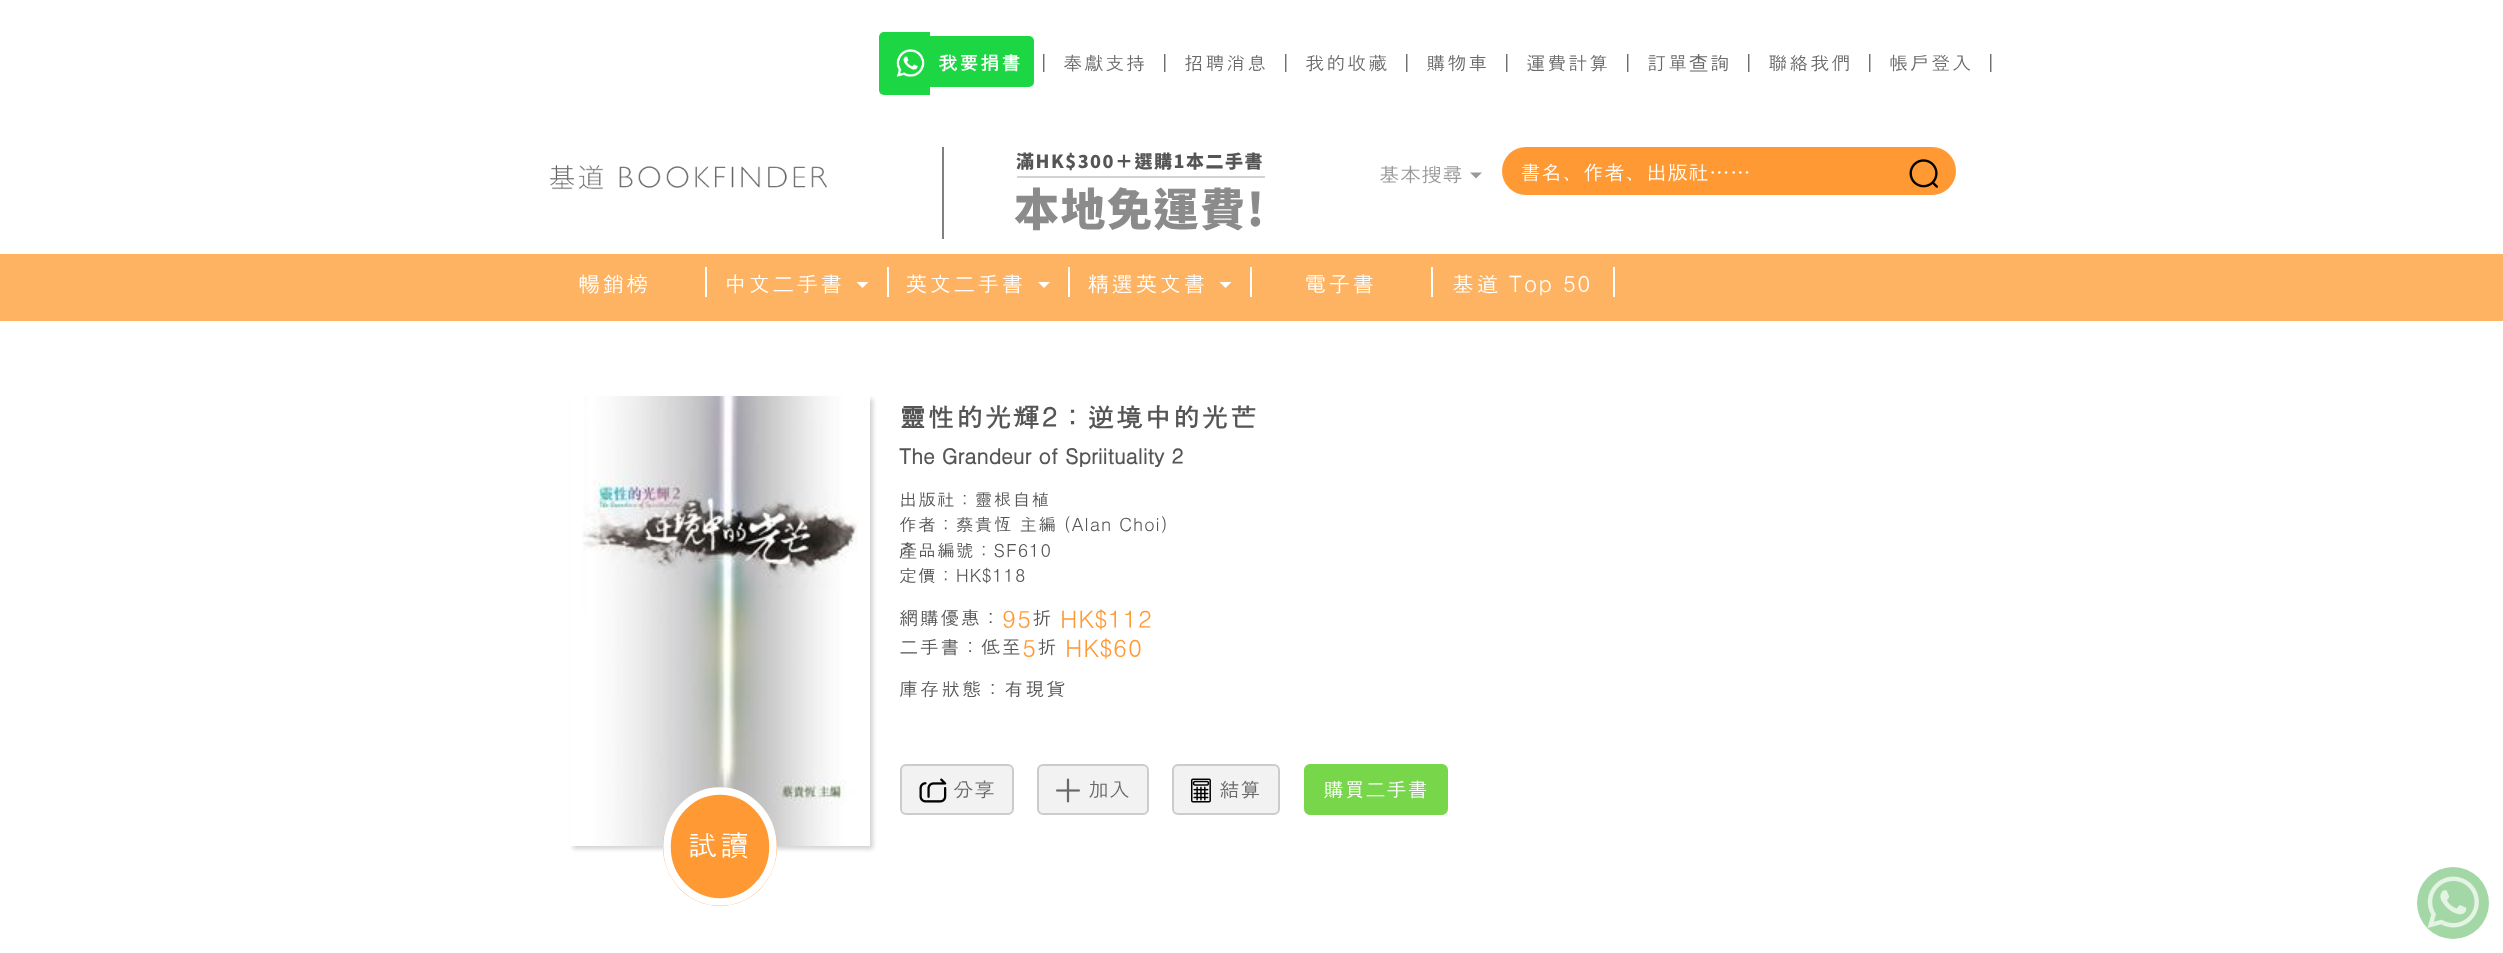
async function draw(canvas) {
  canvas.width = 2503;
  canvas.height = 953;
  const ctx = canvas.getContext('2d');
  ctx.miterLimit = 4;
  ctx.fontKerning = 'normal';
  function label(s, x, y, font, color) {
    ctx.font = font;
    ctx.fillStyle = color;
    ctx.fillText(s, x, y);
  }
  function rect(x, y, w, h, color) {
    ctx.fillStyle = color;
    ctx.fillRect(x, y, w, h);
  }
  async function image(src, x, y, w, h) {
    const img = new Image();
    img.src = src;
    await img.decode();
    ctx.drawImage(img, x, y, w, h);
  }
  let path;

  rect(0, 0, 2503, 953, '#fff');
  ctx.fillStyle = '#1cd743';
  ctx.beginPath();
  ctx.roundRect(879, 32, 51, 63, [5, 0, 0, 5]);
  ctx.fill();
  await image('assets/img1.png', 896, 49, 29, 28);
  ctx.beginPath();
  ctx.roundRect(930, 36, 104, 51, [0, 5, 5, 0]);
  ctx.fill();
  ctx.letterSpacing = '1.5px';
  label('我要捐書', 938, 70, 'bold 19.5px Dotum', '#fff');
  label('｜', 1034, 70, '19.5px Dotum', '#555');
  label('奉獻支持', 1063, 70, '19.5px Dotum', '#696969');
  label('｜', 1155, 70, '19.5px Dotum', '#555');
  label('招聘消息', 1184, 70, '19.5px Dotum', '#696969');
  label('｜', 1276, 70, '19.5px Dotum', '#555');
  label('我的收藏', 1305, 70, '19.5px Dotum', '#696969');
  label('｜', 1397, 70, '19.5px Dotum', '#555');
  label('購物車', 1426, 70, '19.5px Dotum', '#696969');
  label('｜', 1497, 70, '19.5px Dotum', '#555');
  label('運費計算', 1526, 70, '19.5px Dotum', '#696969');
  label('｜', 1618, 70, '19.5px Dotum', '#555');
  label('訂單', 1647, 70, '19.5px Dotum', '#696969');
  label('查', 1689, 70, '500 19.5px WenQuanYi Zen Hei', '#696969');
  label('詢', 1710, 70, '19.5px Dotum', '#696969');
  label('｜', 1739, 70, '19.5px Dotum', '#555');
  label('聯絡我們', 1768, 70, '19.5px Dotum', '#696969');
  label('｜', 1860, 70, '19.5px Dotum', '#555');
  label('帳戶登入', 1889, 70, '19.5px Dotum', '#696969');
  label('｜', 1981, 70, '19.5px Dotum', '#555');
  await image('assets/img2.png', 549, 165, 279, 25);
  rect(942, 147, 2, 92, '#808080');
  label('滿HK$300＋選購1本二手書', 1016, 168, '900 18px Noto Sans TC', '#555');
  rect(1017, 176, 248, 2, '#d3d3d3');
  label('本地免運費!', 1014, 226, '900 45px Noto Sans TC', '#8b8b8b');
  ctx.letterSpacing = '0px';
  label('基本搜尋', 1379, 182, '21px Dotum', '#999');
  path = new Path2D('M1470 172.5H1482L1476 178.5Z');
  ctx.fill(path);
  ctx.fillStyle = '#f93';
  ctx.beginPath();
  ctx.roundRect(1502, 147, 390, 48, [24, 0, 0, 24]);
  ctx.fill();
  label('書名、作者、出版社……', 1520, 180, '21px Dotum', '#fff');
  ctx.fillStyle = '#f93';
  ctx.beginPath();
  ctx.roundRect(1892, 147, 64, 48, [0, 24, 24, 0]);
  ctx.fill();
  await image('assets/img3.png', 1909, 159, 29, 29);
  rect(0, 254, 2503, 67, '#feb363');
  rect(705, 267, 2, 30, '#fff');
  ctx.letterSpacing = '1.5px';
  label('暢銷榜', 578, 292, '22.5px Dotum', '#fff');
  rect(887, 267, 2, 30, '#fff');
  label('中文二手書', 724, 292, '22.5px Dotum', '#fff');
  path = new Path2D('M856.5 282H868.5L862.5 288Z');
  ctx.fill(path);
  rect(1068, 267, 2, 30, '#fff');
  label('英文二手書', 905, 292, '22.5px Dotum', '#fff');
  path = new Path2D('M1038 282H1050L1044 288Z');
  ctx.fill(path);
  rect(1250, 267, 2, 30, '#fff');
  label('精選英文書', 1087, 292, '22.5px Dotum', '#fff');
  path = new Path2D('M1219.5 282H1231.5L1225.5 288Z');
  ctx.fill(path);
  rect(1431, 267, 2, 30, '#fff');
  label('電子書', 1304, 292, '22.5px Dotum', '#fff');
  rect(1613, 267, 2, 30, '#fff');
  label('基道 Top 50', 1452, 292, '22.5px Dotum', '#fff');
  label('靈性的光輝2：逆境中的光芒', 899, 427, 'bold 27px Dotum', '#555');
  ctx.letterSpacing = '0px';
  label('The Grandeur of Spriituality 2', 899, 464, 'bold 21px Dotum', '#555');
  ctx.letterSpacing = '0.9px';
  label('出版社：靈根自植', 899, 506, '18px Dotum', '#555');
  label('作者：蔡貴恆 主編 (Alan Choi)', 899, 531, '18px Dotum', '#555');
  label('產', 899, 557, '500 18px WenQuanYi Zen Hei', '#555');
  label('品編號：SF610', 918, 557, '18px Dotum', '#555');
  label('定價：HK$118', 899, 582, '18px Dotum', '#555');
  ctx.letterSpacing = '1px';
  label('網購優惠：', 899, 625, '19.5px Dotum', '#555');
  label('95', 1002, 628, '24px Dotum', '#f93');
  label('折', 1032, 625, '19.5px Dotum', '#555');
  label('HK$112', 1060, 628, '24px Dotum', '#f93');
  label('二手書：低至', 899, 654, '19.5px Dotum', '#555');
  label('5', 1022, 657, '24px Dotum', '#f93');
  label('折', 1037, 654, '19.5px Dotum', '#555');
  label('HK$60', 1065, 657, '24px Dotum', '#f93');
  ctx.letterSpacing = '1.5px';
  label('庫存狀態：有現貨', 899, 696, '19.5px Dotum', '#555');
  ctx.fillStyle = '#f2f2f2';
  ctx.beginPath();
  ctx.roundRect(901, 765, 112, 49, 5);
  ctx.fill();
  ctx.strokeStyle = '#ccc';
  ctx.lineWidth = 2;
  ctx.stroke();
  await image('assets/img4.png', 919, 778, 28, 25);
  ctx.letterSpacing = '0px';
  label('分享', 953, 797, '21px Dotum', '#696969');
  ctx.fillStyle = '#f2f2f2';
  ctx.beginPath();
  ctx.roundRect(1038, 765, 110, 49, 5);
  ctx.fill();
  ctx.stroke();
  await image('assets/img5.png', 1056, 778, 24, 25);
  label('加入', 1088, 797, '21px Dotum', '#696969');
  ctx.fillStyle = '#f2f2f2';
  ctx.beginPath();
  ctx.roundRect(1173, 765, 106, 49, 5);
  ctx.fill();
  ctx.stroke();
  await image('assets/img6.png', 1191, 778, 20, 25);
  label('結算', 1219, 797, '21px Dotum', '#696969');
  ctx.fillStyle = '#78d64b';
  ctx.beginPath();
  ctx.roundRect(1305, 765, 142, 49, 5);
  ctx.fill();
  ctx.strokeStyle = '#78d64b';
  ctx.stroke();
  label('購買二手書', 1323, 797, '21px Dotum', '#fff');
  ctx.save();
  path = new Path2D('M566 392H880V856H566ZM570 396H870V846H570Z');
  ctx.clip(path, 'evenodd');
  ctx.fillStyle = '#d3d3d3';
  ctx.filter = 'blur(2px)';
  ctx.beginPath();
  ctx.rect(573, 399, 300, 450);
  ctx.fill();
  ctx.filter = 'none';
  ctx.restore();
  await image('assets/img7.png', 582, 396, 276, 450);
  ctx.fillStyle = '#f93';
  ctx.beginPath();
  ctx.ellipse(720, 847, 57, 59, 0, 0, 2 * Math.PI);
  ctx.fill();
  path = new Path2D('M720 791C749.5 791 773 816 773 847C773 877.5 749.5 902 720 902C690.5 902 667 877.5 667 847C667 816 690.5 791 720 791Z');
  ctx.strokeStyle = '#fff';
  ctx.lineWidth = 7.5;
  ctx.stroke(path);
  ctx.letterSpacing = '1.5px';
  label('試讀', 688, 856, '30px Dotum', '#fff');
  ctx.fillStyle = '#a3d7a5';
  ctx.beginPath();
  ctx.arc(2453, 903, 36, 0, 2 * Math.PI);
  ctx.fill();
  await image('assets/img8.png', 2427, 876, 52, 52);
}

draw(document.querySelector('canvas'));
